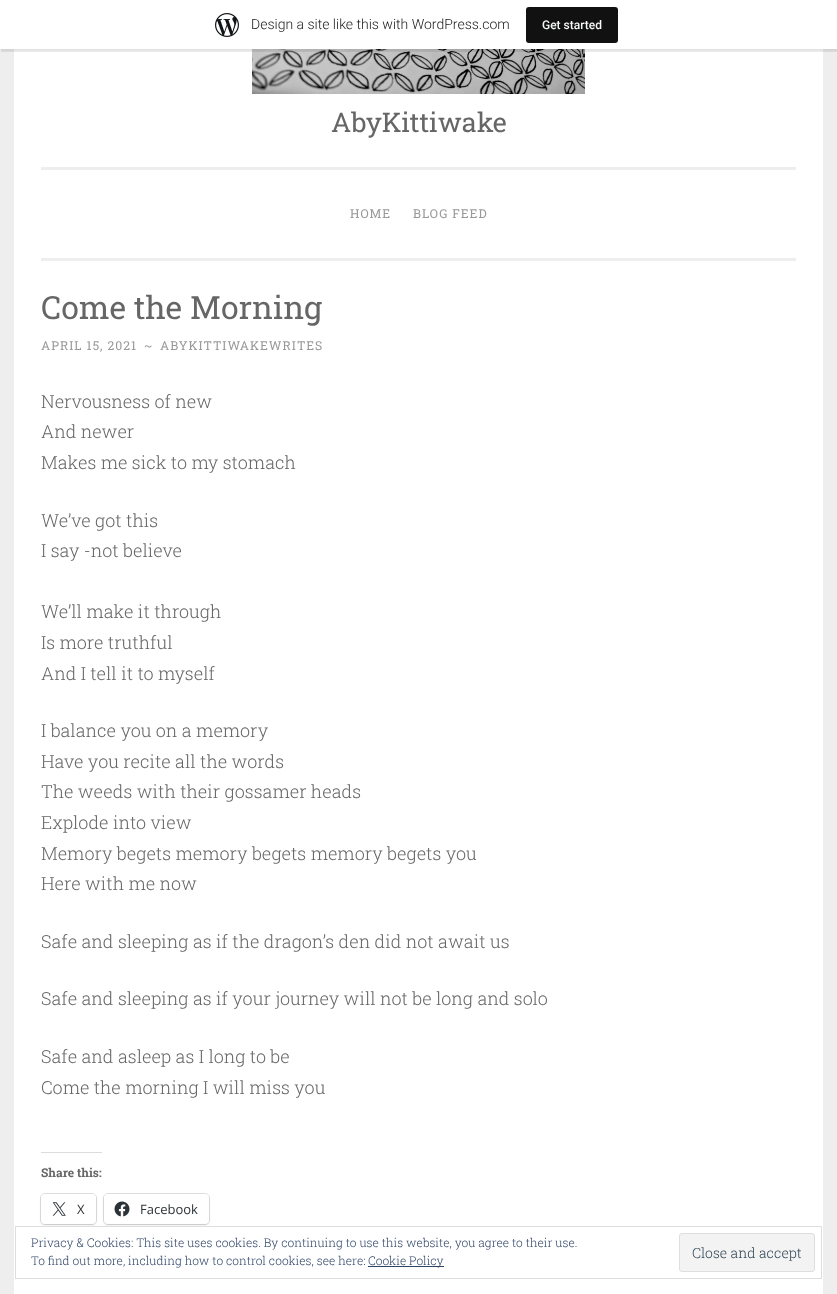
async function draw(canvas) {
  canvas.width = 837;
  canvas.height = 1294;
  const ctx = canvas.getContext('2d');
  ctx.miterLimit = 4;
  ctx.fontKerning = 'normal';
  function label(s, x, y, font, color) {
    ctx.font = font;
    ctx.fillStyle = color;
    ctx.fillText(s, x, y);
  }
  function rect(x, y, w, h, color) {
    ctx.fillStyle = color;
    ctx.fillRect(x, y, w, h);
  }
  function roundedRect(x, y, w, h, r, color) {
    ctx.fillStyle = color;
    ctx.beginPath();
    ctx.roundRect(x, y, w, h, r);
    ctx.fill();
  }
  async function image(src, x, y, w, h) {
    const img = new Image();
    img.src = src;
    await img.decode();
    ctx.drawImage(img, x, y, w, h);
  }
  let path;

  rect(0, 0, 837, 1294, '#eee');
  rect(14, 49, 809, 1245, '#fff');
  await image('assets/img2.png', 252, 49, 333, 45);
  ctx.fillStyle = '#0000000d';
  ctx.filter = 'blur(1px)';
  ctx.beginPath();
  ctx.rect(0, 1, 837, 49);
  ctx.fill();
  ctx.filter = 'none';
  ctx.fillStyle = '#00000014';
  path = new Path2D('M1 49V52H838V3H837V49Z');
  ctx.fill(path);
  rect(0, 0, 837, 49, '#fff');
  await image('assets/img1.png', 215, 13, 24, 24);
  label('Design a site like this with WordPress.com', 251, 29, '300 14px Roboto', '#171717');
  roundedRect(526, 7, 92, 36, 3, '#111');
  label('Get started', 542, 29, '500 12px Roboto', '#f6f7f7');
  rect(41, 258, 755, 3, '#eee');
  label('AbyKittiwake', 331, 132, '27px Roboto Slab', '#666');
  rect(41, 167, 755, 3, '#eee');
  ctx.letterSpacing = '1px';
  label('HOME', 350, 218, '12.25px Roboto Slab', '#999');
  label('BLOG FEED', 413, 218, '12.25px Roboto Slab', '#999');
  ctx.letterSpacing = '0px';
  label('Come the Morning', 41, 319, '32px Roboto Slab', '#666');
  ctx.letterSpacing = '1px';
  label('APRIL 15, 2021', 41, 350, '12.25px Roboto Slab', '#999');
  label('~', 144, 350, '12.25px Roboto Slab', '#999');
  label('ABYKITTIWAKEWRITES', 160, 350, '12.25px Roboto Slab', '#999');
  ctx.letterSpacing = '0px';
  label('Nervousness of new', 41, 408, '300 18px Roboto Slab', '#666');
  label('And newer', 41, 438, '300 18px Roboto Slab', '#666');
  label('Makes me sick to my stomach', 41, 469, '300 18px Roboto Slab', '#666');
  label('We’ve got this', 41, 527, '300 18px Roboto Slab', '#666');
  label('I say -not believe', 41, 557, '300 18px Roboto Slab', '#666');
  label('We’ll make it through', 41, 618, '300 18px Roboto Slab', '#666');
  label('Is more truthful', 41, 649, '300 18px Roboto Slab', '#666');
  label('And I tell it to myself', 41, 680, '300 18px Roboto Slab', '#666');
  label('I balance you on a memory', 41, 737, '300 18px Roboto Slab', '#666');
  label('Have you recite all the words', 41, 768, '300 18px Roboto Slab', '#666');
  label('The weeds with their gossamer heads', 41, 798, '300 18px Roboto Slab', '#666');
  label('Explode into view', 41, 829, '300 18px Roboto Slab', '#666');
  label('Memory begets memory begets memory begets you', 41, 860, '300 18px Roboto Slab', '#666');
  label('Here with me now', 41, 890, '300 18px Roboto Slab', '#666');
  label('Safe and sleeping as if the dragon’s den did not await us', 41, 948, '300 18px Roboto Slab', '#666');
  label('Safe and sleeping as if your journey will not be long and solo', 41, 1005, '300 18px Roboto Slab', '#666');
  label('Safe and asleep as I long to be', 41, 1063, '300 18px Roboto Slab', '#666');
  label('Come the morning I will miss you', 41, 1094, '300 18px Roboto Slab', '#666');
  rect(41, 1152, 61, 1, '#dcdcde');
  label('Share this:', 41, 1177, 'bold 12px Roboto Slab', '#666');
  ctx.beginPath();
  ctx.roundRect(40.5, 1193.5, 56, 31, 4.5);
  ctx.strokeStyle = '#e0e0e0';
  ctx.stroke();
  ctx.fillStyle = '#0000001f';
  ctx.filter = 'blur(1px)';
  ctx.beginPath();
  ctx.roundRect(41, 1195, 55, 30, 4);
  ctx.fill();
  ctx.filter = 'none';
  roundedRect(41, 1194, 55, 30, 4, '#fff');
  await image('assets/img3.png', 52, 1202, 14, 14);
  label('X', 77, 1214, '13px Open Sans', '#2c3338');
  ctx.beginPath();
  ctx.roundRect(103.5, 1193.5, 106, 31, 4.5);
  ctx.stroke();
  ctx.fillStyle = '#0000001f';
  ctx.filter = 'blur(1px)';
  ctx.beginPath();
  ctx.roundRect(104, 1195, 105, 30, 4);
  ctx.fill();
  ctx.filter = 'none';
  roundedRect(104, 1194, 105, 30, 4, '#fff');
  await image('assets/img4.png', 114, 1201, 16, 16);
  label('Facebook', 140, 1214, '13px Open Sans', '#2c3338');
  ctx.strokeStyle = '#dedede';
  ctx.strokeRect(15.5, 1226.5, 806, 52);
  label('Privacy & Cookies: This site uses cookies. By continuing to use this website, you agree to their use.', 31, 1247, '300 12px Roboto Slab', '#2e4467');
  label('To find out more, including how to control cookies, see here:', 31, 1265, '300 12px Roboto Slab', '#2e4467');
  rect(368, 1266, 76, 1, '#2e4467');
  label('Cookie Policy', 368, 1265, '300 12px Roboto Slab', '#2e4467');
  ctx.fillStyle = '#f3f3f3';
  ctx.beginPath();
  ctx.roundRect(679.5, 1233.5, 135, 38, 2.5);
  ctx.fill();
  ctx.stroke();
  label('Close and accept', 692, 1258, '300 14px Roboto Slab', '#2e4453');
}

draw(document.querySelector('canvas'));
